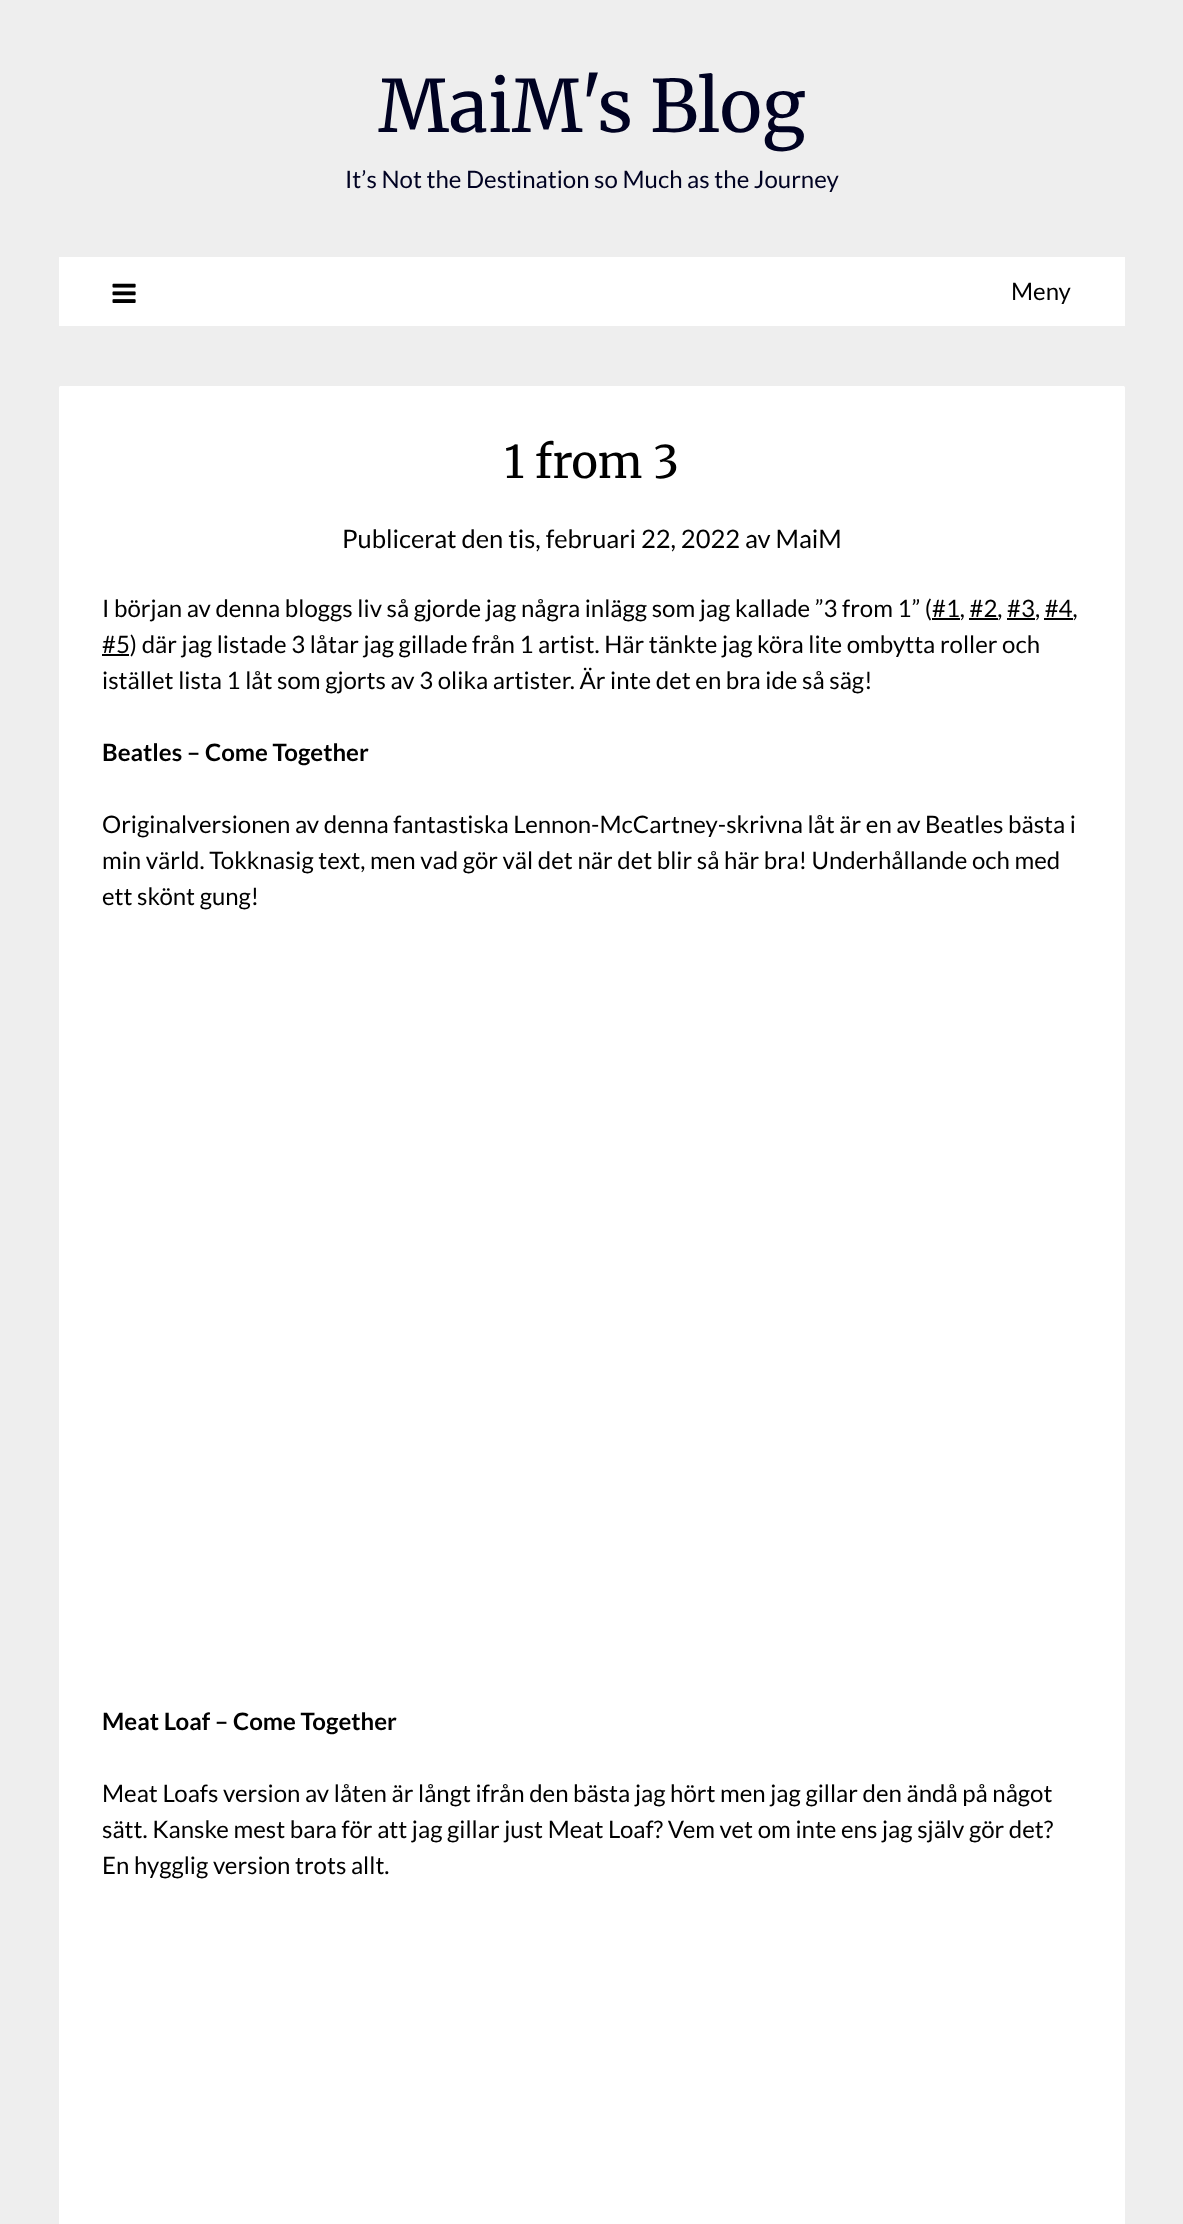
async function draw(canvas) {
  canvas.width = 1183;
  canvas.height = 2224;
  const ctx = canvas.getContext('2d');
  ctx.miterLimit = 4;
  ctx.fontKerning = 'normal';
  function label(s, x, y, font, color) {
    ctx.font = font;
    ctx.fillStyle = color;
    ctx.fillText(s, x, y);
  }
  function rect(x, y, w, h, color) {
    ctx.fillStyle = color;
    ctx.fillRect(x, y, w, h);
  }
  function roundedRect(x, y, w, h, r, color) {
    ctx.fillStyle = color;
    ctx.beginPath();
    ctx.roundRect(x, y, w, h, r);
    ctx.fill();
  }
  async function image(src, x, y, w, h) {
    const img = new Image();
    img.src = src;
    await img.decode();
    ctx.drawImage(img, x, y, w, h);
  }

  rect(0, 0, 1183, 2224, '#eee');
  label('MaiM\'s Blog', 378, 132, '72px Merriweather', '#000222');
  label('It’s Not the Destination so Much as the Journey', 345, 188, '24px Lato', '#000222');
  rect(59, 257, 1066, 69, '#fff');
  await image('assets/img1.png', 112, 283, 24, 20);
  label('Meny', 1011, 300, '24px Lato', '#000');
  roundedRect(59, 386, 1066, 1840, 1.5, '#fff');
  label('1 from 3', 504, 478, '45px Merriweather', '#000');
  label('Publicerat den tis, februari 22, 2022 av MaiM', 342, 548, '25.5px Lato', '#000');
  label('I början av denna bloggs liv så gjorde jag några inlägg som jag kallade ”3 from 1” (#1, #2, #3, #4,', 102, 617, '24px Lato', '#000');
  rect(932, 618, 28, 2, '#000');
  rect(969, 618, 29, 2, '#000');
  rect(1007, 618, 28, 2, '#000');
  rect(1044, 618, 29, 2, '#000');
  rect(102, 654, 27, 2, '#000');
  label('#5) där jag listade 3 låtar jag gillade från 1 artist. Här tänkte jag köra lite ombytta roller och', 102, 653, '24px Lato', '#000');
  label('istället lista 1 låt som gjorts av 3 olika artister. Är inte det en bra ide så säg!', 102, 689, '24px Lato', '#000');
  label('Beatles – Come Together', 102, 761, 'bold 24px Lato', '#000');
  label('Originalversionen av denna fantastiska Lennon-McCartney-skrivna låt är en av Beatles bästa i', 102, 833, '24px Lato', '#000');
  label('min värld. Tokknasig text, men vad gör väl det när det blir så här bra! Underhållande och med', 102, 869, '24px Lato', '#000');
  label('ett skönt gung!', 102, 905, '24px Lato', '#000');
  label('Meat Loaf – Come Together', 102, 1730, 'bold 24px Lato', '#000');
  label('Meat Loafs version av låten är långt ifrån den bästa jag hört men jag gillar den ändå på något', 102, 1802, '24px Lato', '#000');
  label('sätt. Kanske mest bara för att jag gillar just Meat Loaf? Vem vet om inte ens jag själv gör det?', 102, 1838, '24px Lato', '#000');
  label('En hygglig version trots allt.', 102, 1874, '24px Lato', '#000');
}

draw(document.querySelector('canvas'));
